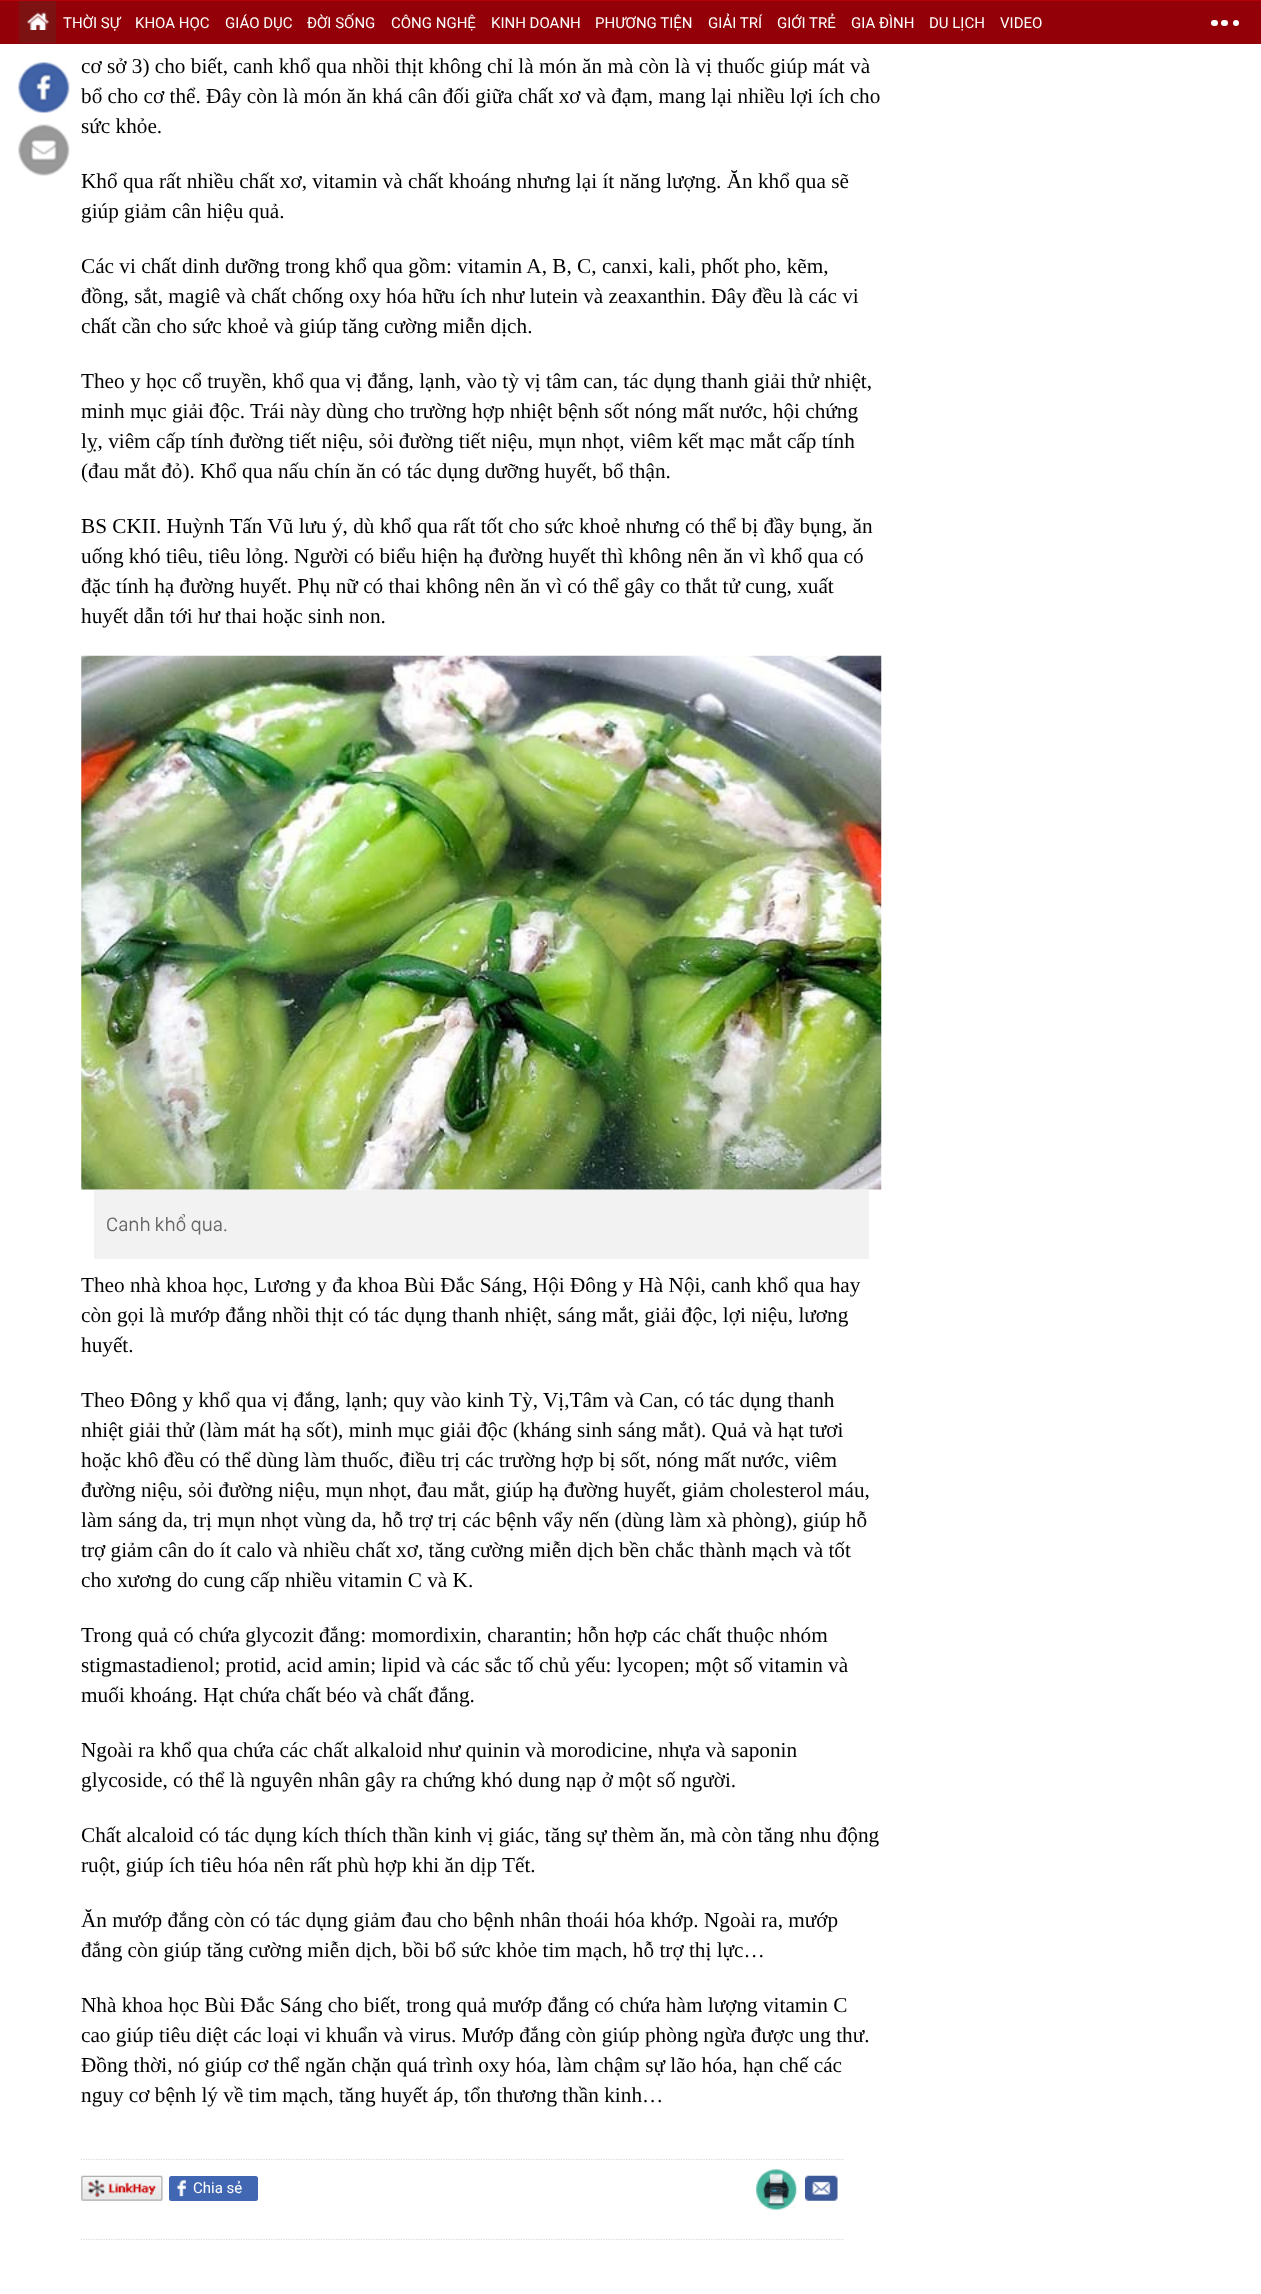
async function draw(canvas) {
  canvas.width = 1261;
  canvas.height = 2294;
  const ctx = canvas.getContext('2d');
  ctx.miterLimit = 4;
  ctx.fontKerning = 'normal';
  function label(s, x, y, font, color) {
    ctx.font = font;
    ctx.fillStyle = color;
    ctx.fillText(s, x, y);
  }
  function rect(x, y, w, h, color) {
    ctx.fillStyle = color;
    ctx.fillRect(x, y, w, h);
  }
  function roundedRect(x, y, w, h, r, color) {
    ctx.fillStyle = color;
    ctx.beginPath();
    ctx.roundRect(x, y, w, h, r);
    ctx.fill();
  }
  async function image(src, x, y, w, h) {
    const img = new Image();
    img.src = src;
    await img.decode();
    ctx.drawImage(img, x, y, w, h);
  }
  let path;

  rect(0, 0, 1261, 2294, '#fff');
  rect(0, 1, 1261, 43, '#930007');
  rect(0, 0, 1261, 1, '#b40009');
  rect(19, 1, 37, 42, '#7d1212');
  await image('assets/img1.png', 27, 12, 22, 18);
  label('THỜI SỰ', 63, 28, '15px Roboto', '#fff');
  label('KHOA HỌC', 135, 28, '15px Roboto', '#fff');
  label('GIÁO DỤC', 225, 28, '15px Roboto', '#fff');
  label('ĐỜI SỐNG', 307, 28, '15px Roboto', '#fff');
  label('CÔNG NGHỆ', 391, 28, '15px Roboto', '#fff');
  label('KINH DOANH', 491, 28, '15px Roboto', '#fff');
  label('PHƯƠNG TIỆN', 595, 28, '15px Roboto', '#fff');
  label('GIẢI TRÍ', 708, 28, '15px Roboto', '#fff');
  label('GIỚI TRẺ', 777, 28, '15px Roboto', '#fff');
  label('GIA ĐÌNH', 851, 28, '15px Roboto', '#fff');
  label('DU LỊCH', 929, 28, '15px Roboto', '#fff');
  label('VIDEO', 1000, 28, '15px Roboto', '#fff');
  roundedRect(1211, 20, 7, 6, 3, '#fff');
  roundedRect(1221, 20, 7, 6, 3, '#fff');
  ctx.beginPath();
  ctx.arc(1236, 23, 3, 0, 2 * Math.PI);
  ctx.fill();
  await image('assets/img2.png', 18, 62, 52, 51);
  await image('assets/img3.png', 18, 124, 52, 52);
  label('cơ sở 3) cho biết, canh khổ qua nhồi thịt không chỉ là món ăn mà còn là vị thuốc giúp mát và', 81, 73, '21.25px Liberation Serif', '#000');
  label('bổ cho cơ thể. Đây còn là món ăn khá cân đối giữa chất xơ và đạm, mang lại nhiều lợi ích cho', 81, 103, '21.25px Liberation Serif', '#000');
  label('sức khỏe.', 81, 133, '21.25px Liberation Serif', '#000');
  label('Khổ qua rất nhiều chất xơ, vitamin và chất khoáng nhưng lại ít năng lượng. Ăn khổ qua sẽ', 81, 188, '21.25px Liberation Serif', '#000');
  label('giúp giảm cân hiệu quả.', 81, 218, '21.25px Liberation Serif', '#000');
  label('Các vi chất dinh dưỡng trong khổ qua gồm: vitamin A, B, C, canxi, kali, phốt pho, kẽm,', 81, 273, '21.25px Liberation Serif', '#000');
  label('đồng, sắt, magiê và chất chống oxy hóa hữu ích như lutein và zeaxanthin. Đây đều là các vi', 81, 303, '21.25px Liberation Serif', '#000');
  label('chất cần cho sức khoẻ và giúp tăng cường miễn dịch.', 81, 333, '21.25px Liberation Serif', '#000');
  label('Theo y học cổ truyền, khổ qua vị đắng, lạnh, vào tỳ vị tâm can, tác dụng thanh giải thử nhiệt,', 81, 388, '21.25px Liberation Serif', '#000');
  label('minh mục giải độc. Trái này dùng cho trường hợp nhiệt bệnh sốt nóng mất nước, hội chứng', 81, 418, '21.25px Liberation Serif', '#000');
  label('lỵ, viêm cấp tính đường tiết niệu, sỏi đường tiết niệu, mụn nhọt, viêm kết mạc mắt cấp tính', 81, 448, '21.25px Liberation Serif', '#000');
  label('(đau mắt đỏ). Khổ qua nấu chín ăn có tác dụng dưỡng huyết, bổ thận.', 81, 478, '21.25px Liberation Serif', '#000');
  label('BS CKII. Huỳnh Tấn Vũ lưu ý, dù khổ qua rất tốt cho sức khoẻ nhưng có thể bị đầy bụng, ăn', 81, 533, '21.25px Liberation Serif', '#000');
  label('uống khó tiêu, tiêu lỏng. Người có biểu hiện hạ đường huyết thì không nên ăn vì khổ qua có', 81, 563, '21.25px Liberation Serif', '#000');
  label('đặc tính hạ đường huyết. Phụ nữ có thai không nên ăn vì có thể gây co thắt tử cung, xuất', 81, 593, '21.25px Liberation Serif', '#000');
  label('huyết dẫn tới hư thai hoặc sinh non.', 81, 623, '21.25px Liberation Serif', '#000');
  await image('assets/img4.png', 81, 655, 801, 535);
  rect(94, 1190, 775, 69, '#f2f2f2');
  label('Canh khổ qua.', 106, 1231, '20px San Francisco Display', '#666');
  label('Theo nhà khoa học, Lương y đa khoa Bùi Đắc Sáng, Hội Đông y Hà Nội, canh khổ qua hay', 81, 1292, '21.25px Liberation Serif', '#000');
  label('còn gọi là mướp đắng nhồi thịt có tác dụng thanh nhiệt, sáng mắt, giải độc, lợi niệu, lương', 81, 1322, '21.25px Liberation Serif', '#000');
  label('huyết.', 81, 1352, '21.25px Liberation Serif', '#000');
  label('Theo Đông y khổ qua vị đắng, lạnh; quy vào kinh Tỳ, Vị,Tâm và Can, có tác dụng thanh', 81, 1407, '21.25px Liberation Serif', '#000');
  label('nhiệt giải thử (làm mát hạ sốt), minh mục giải độc (kháng sinh sáng mắt). Quả và hạt tươi', 81, 1437, '21.25px Liberation Serif', '#000');
  label('hoặc khô đều có thể dùng làm thuốc, điều trị các trường hợp bị sốt, nóng mất nước, viêm', 81, 1467, '21.25px Liberation Serif', '#000');
  label('đường niệu, sỏi đường niệu, mụn nhọt, đau mắt, giúp hạ đường huyết, giảm cholesterol máu,', 81, 1497, '21.25px Liberation Serif', '#000');
  label('làm sáng da, trị mụn nhọt vùng da, hỗ trợ trị các bệnh vẩy nến (dùng làm xà phòng), giúp hỗ', 81, 1527, '21.25px Liberation Serif', '#000');
  label('trợ giảm cân do ít calo và nhiều chất xơ, tăng cường miễn dịch bền chắc thành mạch và tốt', 81, 1557, '21.25px Liberation Serif', '#000');
  label('cho xương do cung cấp nhiều vitamin C và K.', 81, 1587, '21.25px Liberation Serif', '#000');
  label('Trong quả có chứa glycozit đắng: momordixin, charantin; hỗn hợp các chất thuộc nhóm', 81, 1642, '21.25px Liberation Serif', '#000');
  label('stigmastadienol; protid, acid amin; lipid và các sắc tố chủ yếu: lycopen; một số vitamin và', 81, 1672, '21.25px Liberation Serif', '#000');
  label('muối khoáng. Hạt chứa chất béo và chất đắng.', 81, 1702, '21.25px Liberation Serif', '#000');
  label('Ngoài ra khổ qua chứa các chất alkaloid như quinin và morodicine, nhựa và saponin', 81, 1757, '21.25px Liberation Serif', '#000');
  label('glycoside, có thể là nguyên nhân gây ra chứng khó dung nạp ở một số người.', 81, 1787, '21.25px Liberation Serif', '#000');
  label('Chất alcaloid có tác dụng kích thích thần kinh vị giác, tăng sự thèm ăn, mà còn tăng nhu động', 81, 1842, '21.25px Liberation Serif', '#000');
  label('ruột, giúp ích tiêu hóa nên rất phù hợp khi ăn dịp Tết.', 81, 1872, '21.25px Liberation Serif', '#000');
  label('Ăn mướp đắng còn có tác dụng giảm đau cho bệnh nhân thoái hóa khớp. Ngoài ra, mướp', 81, 1927, '21.25px Liberation Serif', '#000');
  label('đắng còn giúp tăng cường miễn dịch, bồi bổ sức khỏe tim mạch, hỗ trợ thị lực…', 81, 1957, '21.25px Liberation Serif', '#000');
  label('Nhà khoa học Bùi Đắc Sáng cho biết, trong quả mướp đắng có chứa hàm lượng vitamin C', 81, 2012, '21.25px Liberation Serif', '#000');
  label('cao giúp tiêu diệt các loại vi khuẩn và virus. Mướp đắng còn giúp phòng ngừa được ung thư.', 81, 2042, '21.25px Liberation Serif', '#000');
  label('Đồng thời, nó giúp cơ thể ngăn chặn quá trình oxy hóa, làm chậm sự lão hóa, hạn chế các', 81, 2072, '21.25px Liberation Serif', '#000');
  label('nguy cơ bệnh lý về tim mạch, tăng huyết áp, tổn thương thần kinh…', 81, 2102, '21.25px Liberation Serif', '#000');
  path = new Path2D('M81 2159.5H844');
  ctx.strokeStyle = '#d9d9d9';
  ctx.lineWidth = 1.2;
  ctx.setLineDash([1.25, 1.25]);
  ctx.stroke(path);
  path = new Path2D('M81 2239.5H844');
  ctx.stroke(path);
  await image('assets/img5.png', 81, 2175, 82, 26);
  roundedRect(169, 2176, 89, 25, 2.5, '#4167b2');
  await image('assets/img6.png', 177, 2180, 9, 17);
  label('Chia sẻ', 193, 2193, '15px Roboto', '#fff');
  await image('assets/img7.png', 756, 2169, 41, 41);
  await image('assets/img8.png', 805, 2175, 33, 26);
}

draw(document.querySelector('canvas'));
